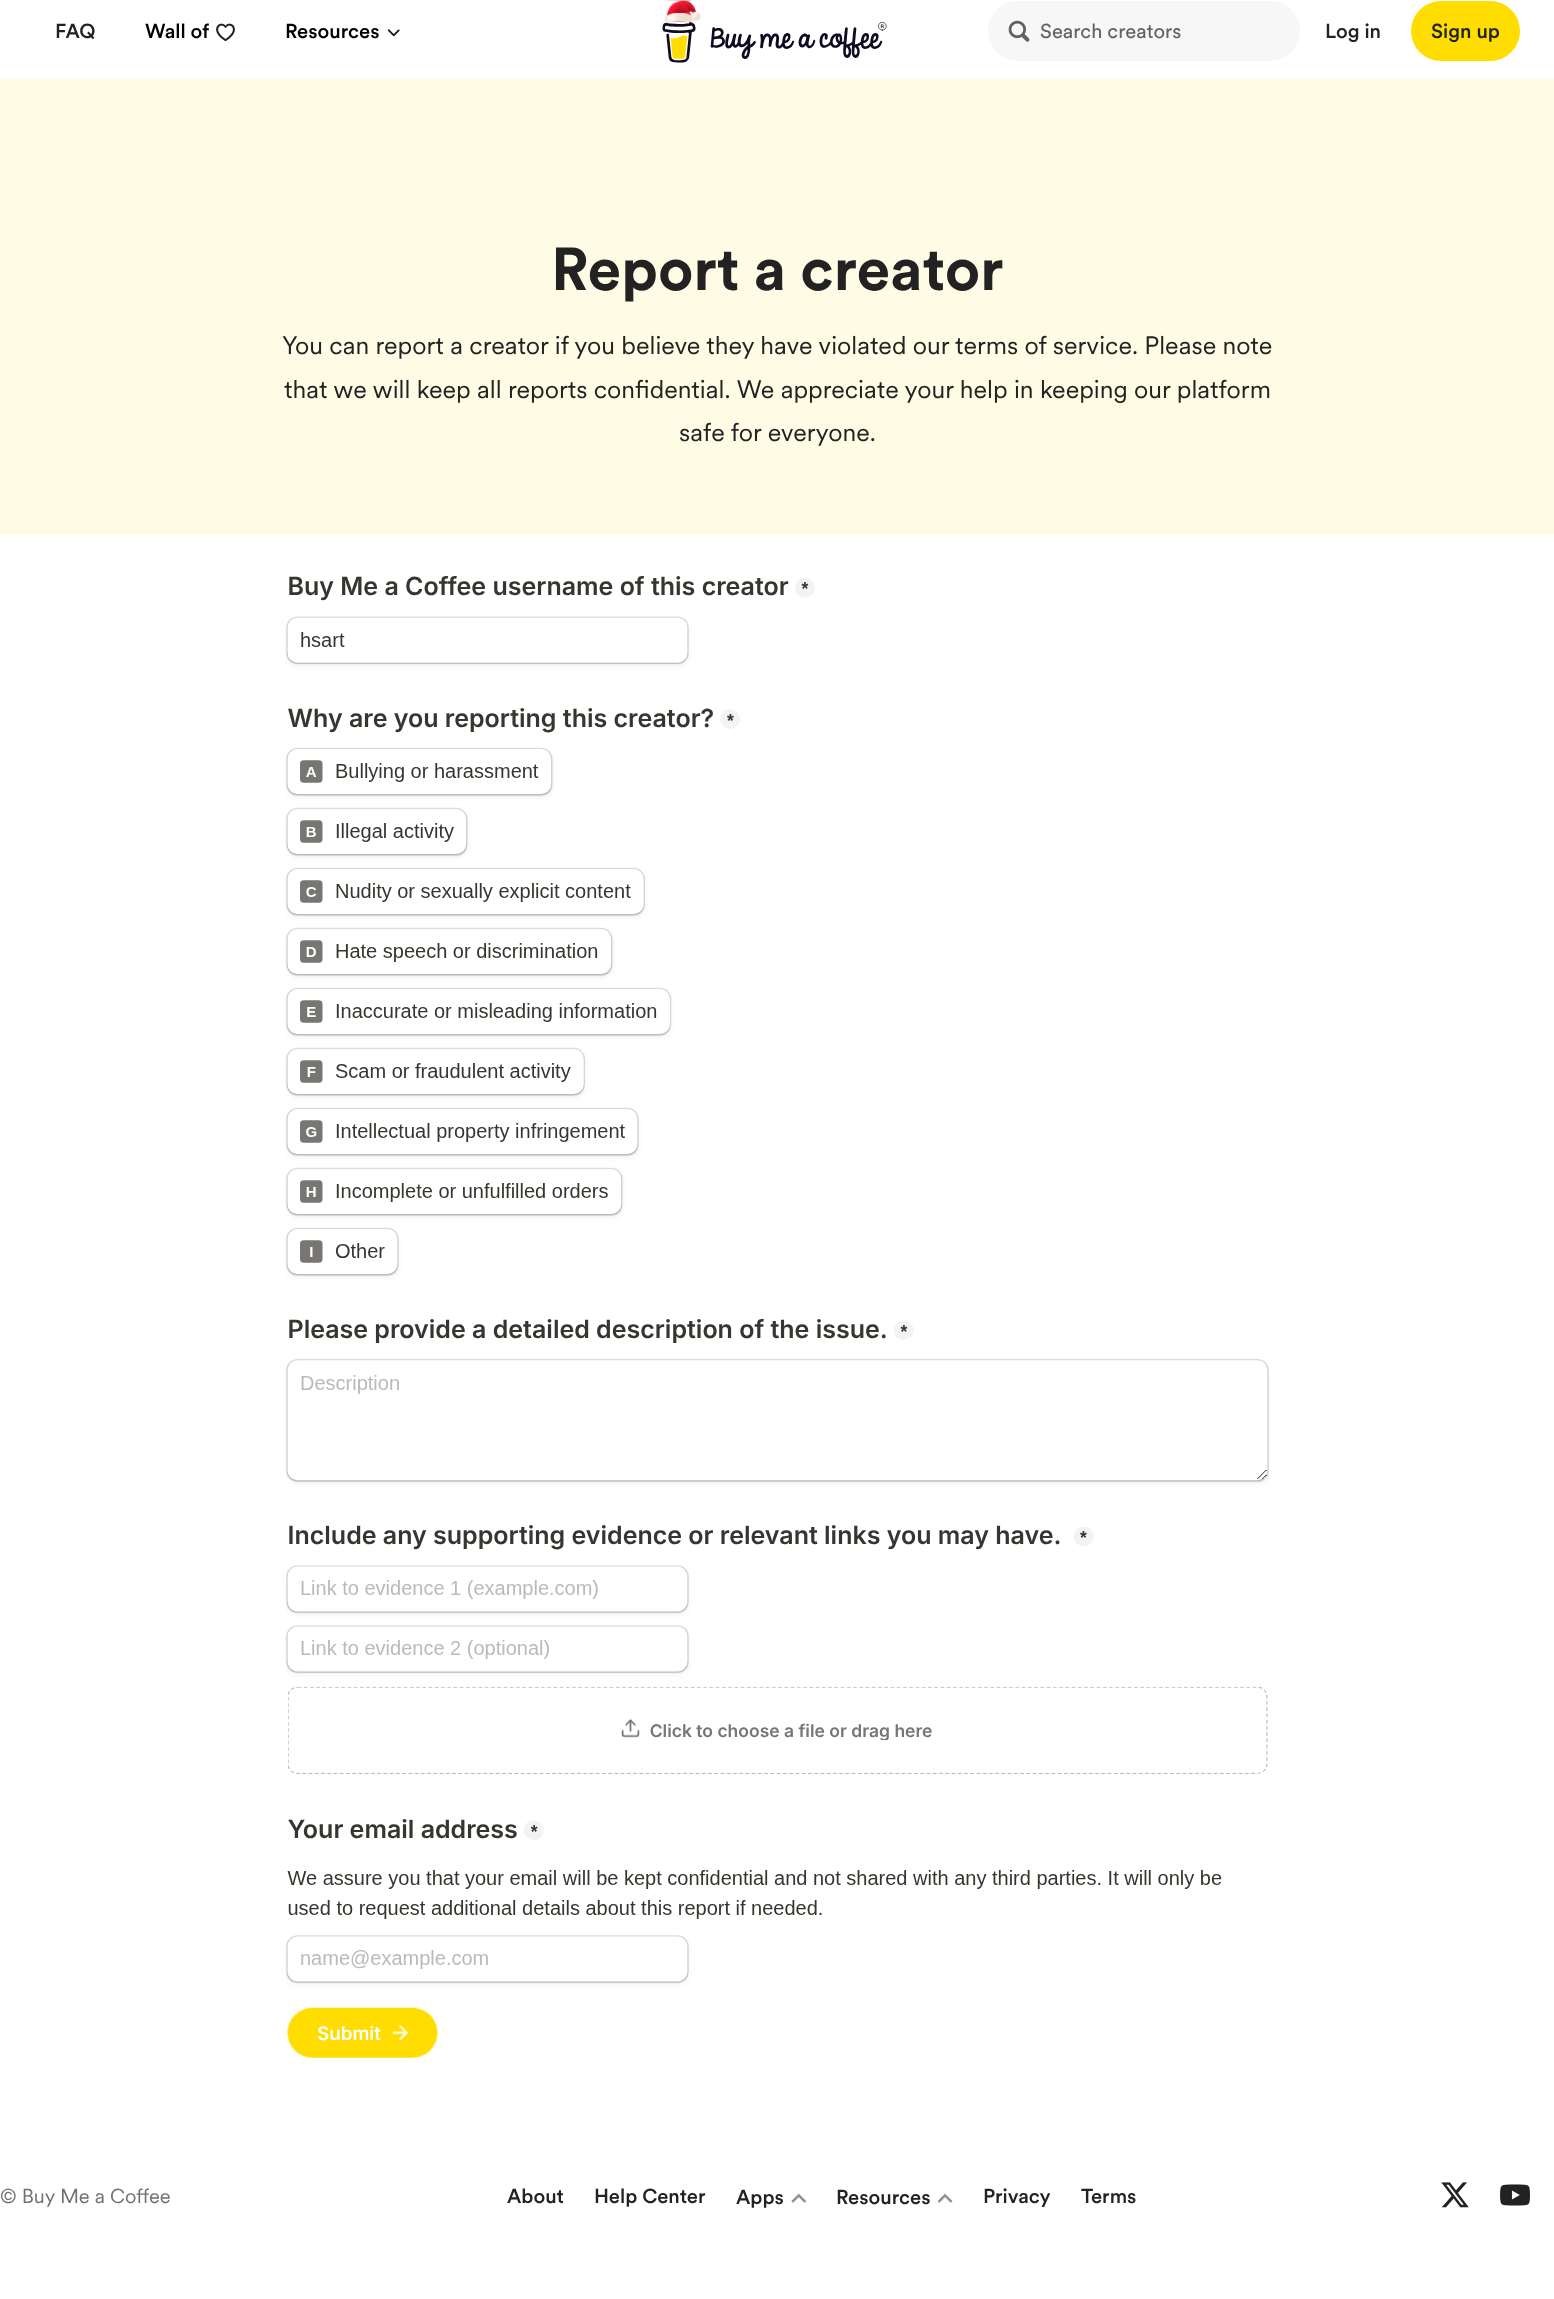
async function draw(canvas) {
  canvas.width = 1554;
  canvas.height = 2299;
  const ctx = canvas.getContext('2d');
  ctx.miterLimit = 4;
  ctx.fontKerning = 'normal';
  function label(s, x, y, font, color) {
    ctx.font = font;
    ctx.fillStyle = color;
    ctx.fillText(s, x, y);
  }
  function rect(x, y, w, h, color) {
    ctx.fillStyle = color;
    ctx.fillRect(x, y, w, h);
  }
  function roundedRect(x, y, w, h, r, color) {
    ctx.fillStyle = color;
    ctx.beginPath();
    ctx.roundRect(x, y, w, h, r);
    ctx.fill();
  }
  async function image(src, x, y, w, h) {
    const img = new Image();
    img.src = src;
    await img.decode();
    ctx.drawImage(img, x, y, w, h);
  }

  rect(0, 0, 1554, 2299, '#fff');
  label('FAQ', 55, 38, '500 20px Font', '#222');
  label('Wall of', 145, 38, '500 20px Font', '#000');
  await image('assets/img1.png', 216, 23, 19, 18);
  label('Resources', 285, 38, '500 20px Font', '#000');
  await image('assets/img2.png', 387, 29, 13, 8);
  await image('assets/img3.png', 662, 0, 225, 63);
  roundedRect(988, 1, 312, 60, 30, '#f7f7f7');
  await image('assets/img4.png', 1008, 20, 22, 22);
  label('Search creators', 1040, 38, '20px "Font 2"', '#626262');
  label('Log in', 1325, 38, '500 20px Font', '#222');
  roundedRect(1411, 1, 109, 60, 30, '#fd0');
  label('Sign up', 1431, 38, '500 20px Font', '#222');
  rect(0, 79, 1554, 456, '#fffce6');
  label('Report a creator', 551, 290, 'bold 60px Font', '#222');
  label('You can report a creator if you believe they have violated our terms of service. Please note', 282, 354, '25px Font', '#222');
  label('that we will keep all reports confidential. We appreciate your help in keeping our platform', 284, 398, '25px Font', '#222');
  label('safe for everyone.', 679, 441, '25px Font', '#222');
  await image('assets/img5.png', 285, 576, 985, 1482);
  label('© Buy Me a Coffee', 0, 2203, '20px Font', '#717171');
  label('About', 507, 2203, '500 20px Font', '#222');
  label('Help Center', 594, 2203, '500 20px Font', '#222');
  label('Apps', 736, 2204, '500 20px Font', '#222');
  await image('assets/img6.png', 791, 2193, 15, 10);
  label('Resources', 836, 2204, '500 20px Font', '#222');
  await image('assets/img7.png', 938, 2193, 15, 10);
  label('Privacy', 983, 2203, '500 20px Font', '#222');
  label('Terms', 1081, 2203, '500 20px Font', '#222');
  await image('assets/img8.png', 1441, 2182, 28, 26);
  await image('assets/img9.png', 1500, 2184, 30, 22);
}

draw(document.querySelector('canvas'));
